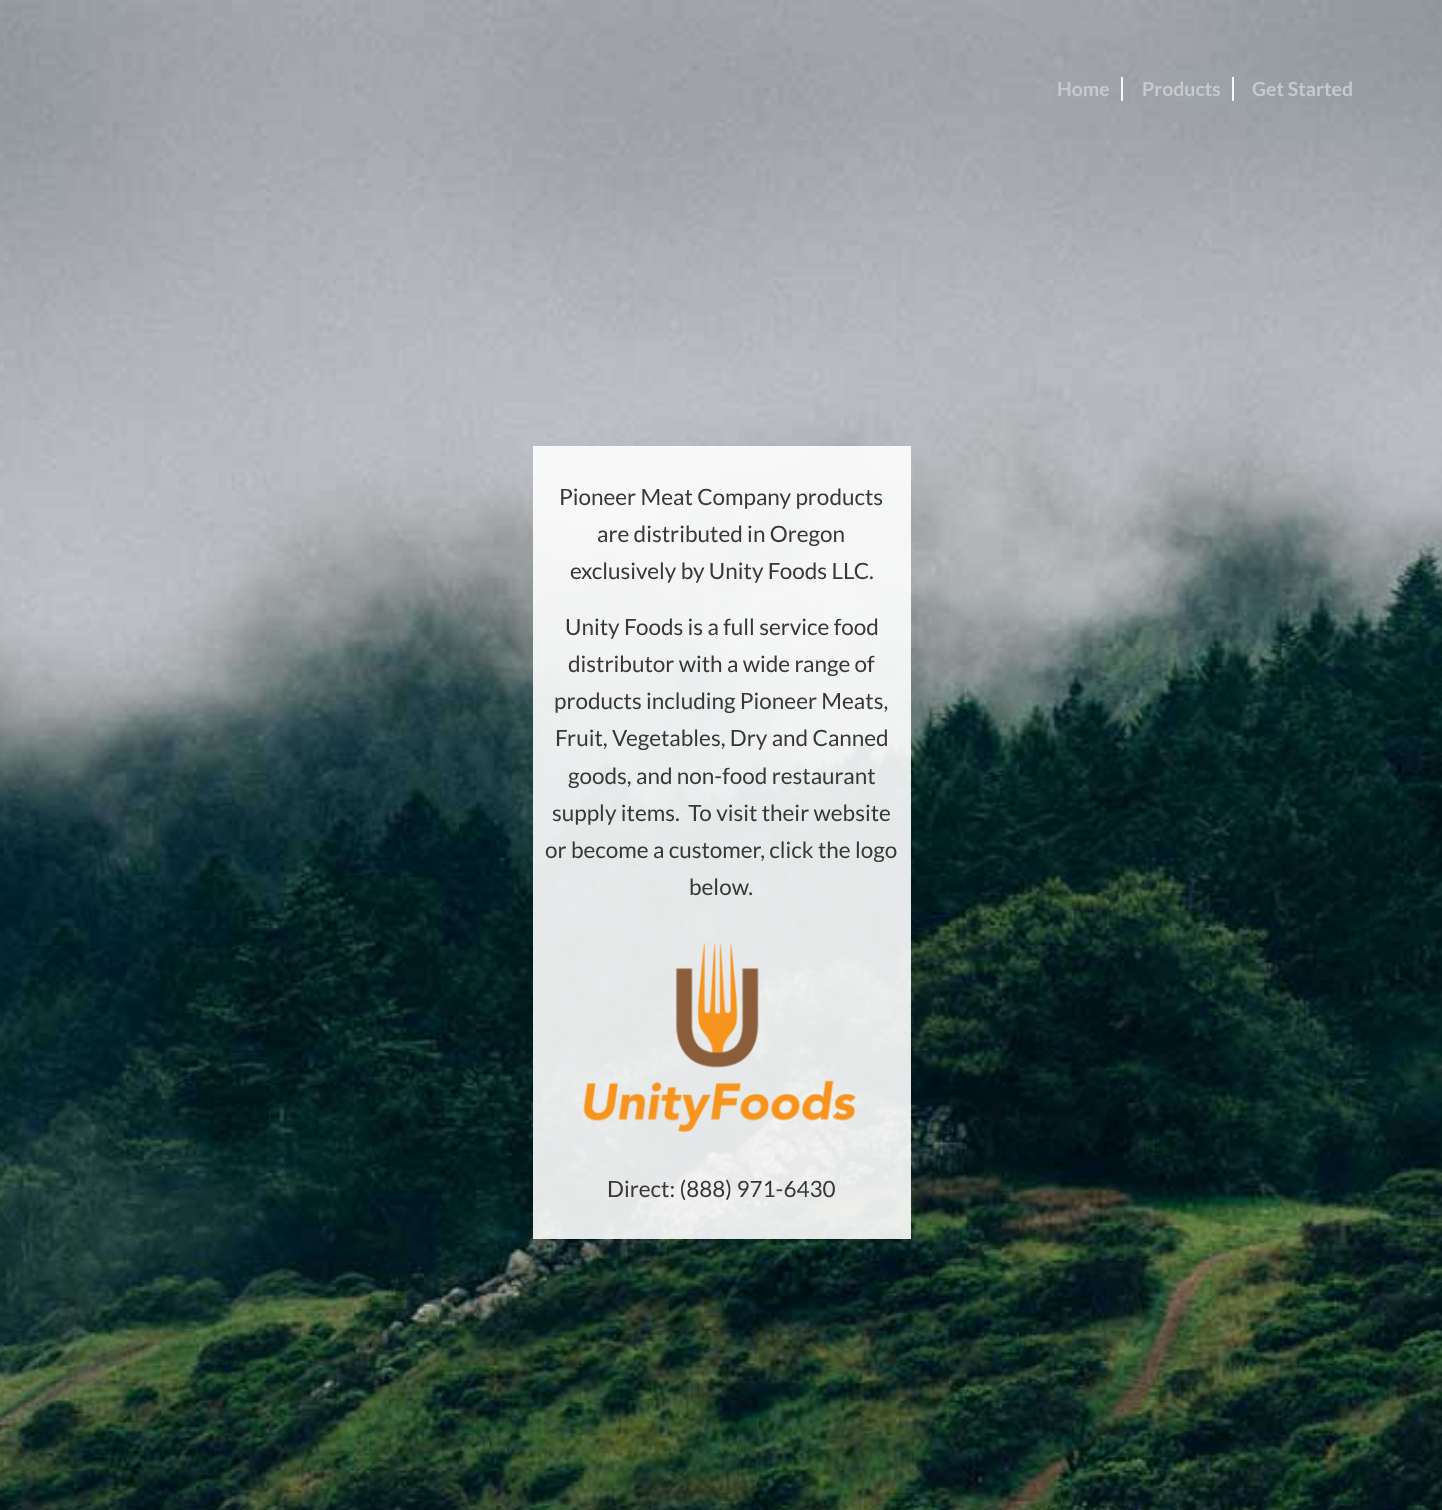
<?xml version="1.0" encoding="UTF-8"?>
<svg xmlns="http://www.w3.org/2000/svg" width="1442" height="1510">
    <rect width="100%" height="100%" fill="#FFFFFF"/>
    <image x="0" y="0" width="1442" height="1510" href="img_01.png"/>
    <text x="1057" y="96" font-family="Lato" font-size="19.5" font-weight="700" fill="#C9C9C9">Home</text>
    <text x="1142" y="96" font-family="Lato" font-size="19.5" font-weight="700" fill="#C9C9C9">Products</text>
    <rect x="1121" y="77" width="2" height="24" fill="#F8F8F8"/>
    <text x="1252" y="96" font-family="Lato" font-size="19.5" font-weight="700" fill="#C9C9C9">Get Started</text>
    <rect x="1232" y="77" width="2" height="24" fill="#F8F8F8"/>
    <rect x="533" y="446" width="378" height="793" fill="#FFFFFF" fill-opacity="0.9"/>
    <text x="559" y="505" font-family="Lato" font-size="22.5" fill="#383838">Pioneer Meat Company products</text>
    <text x="597" y="542" font-family="Lato" font-size="22.5" fill="#383838">are distributed in Oregon</text>
    <text x="570" y="579" font-family="Lato" font-size="22.5" fill="#383838">exclusively by Unity Foods LLC.</text>
    <text x="565" y="635" font-family="Lato" font-size="22.5" fill="#383838">Unity Foods is a full service food</text>
    <text x="568" y="672" font-family="Lato" font-size="22.5" fill="#383838">distributor with a wide range of</text>
    <text x="554" y="709" font-family="Lato" font-size="22.5" fill="#383838">products including Pioneer Meats,</text>
    <text x="555" y="746" font-family="Lato" font-size="22.5" fill="#383838">Fruit, Vegetables, Dry and Canned</text>
    <text x="568" y="784" font-family="Lato" font-size="22.5" fill="#383838">goods, and non-food restaurant</text>
    <text x="552" y="821" font-family="Lato" font-size="22.5" fill="#383838" xml:space="preserve">supply items.  To visit their website</text>
    <text x="545" y="858" font-family="Lato" font-size="22.5" fill="#383838">or become a customer, click the logo</text>
    <text x="689" y="895" font-family="Lato" font-size="22.5" fill="#383838">below.</text>
    <image x="583" y="942" width="273" height="190" href="img_02.png"/>
    <text x="607" y="1197" font-family="Lato" font-size="22.5" fill="#383838">Direct: (888) 971-6430</text>
</svg>
